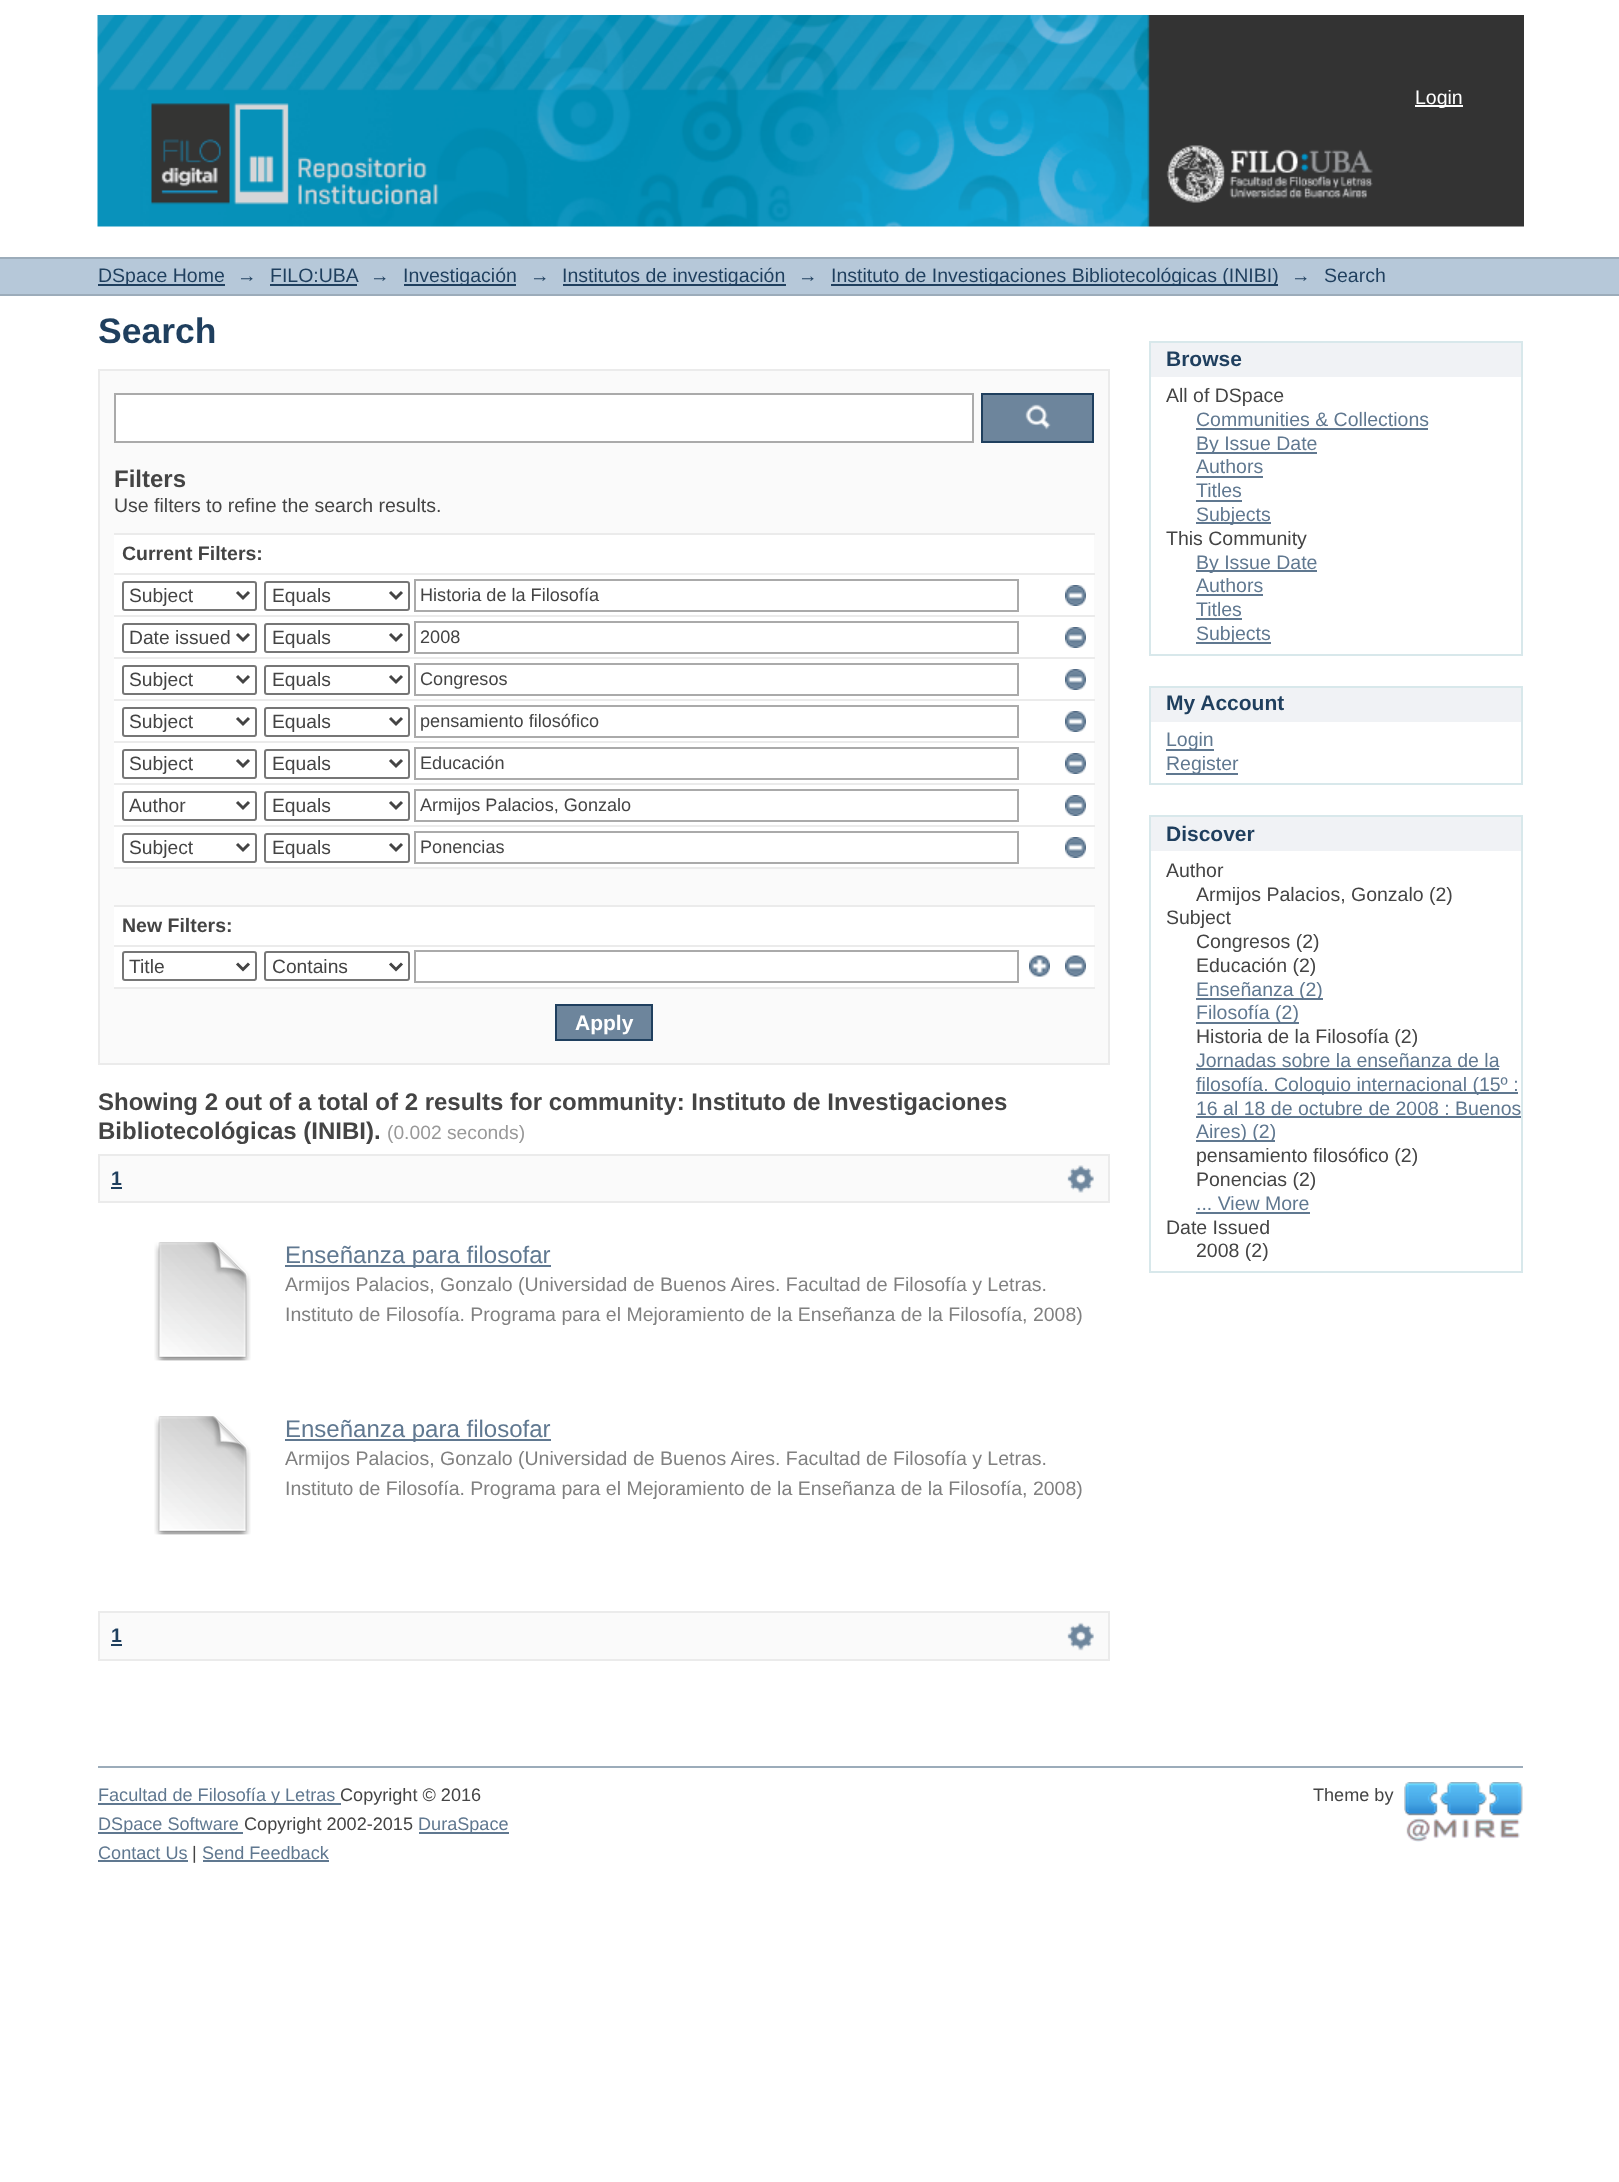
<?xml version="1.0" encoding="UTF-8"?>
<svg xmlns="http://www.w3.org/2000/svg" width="1619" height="2182">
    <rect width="100%" height="100%" fill="#FFFFFF"/>
    <image x="97" y="15" width="1427" height="212" href="img_01.png"/>
    <rect x="1415" y="105" width="48" height="2" fill="#FFFFFF"/>
    <text x="1415" y="104" font-family="Liberation Sans" font-size="19.5" fill="#FFFFFF">Login</text>
    <rect x="0" y="259" width="1619" height="35" fill="#B6C8D9"/>
    <rect x="0" y="257" width="1619" height="2" fill="#9CACBA"/>
    <rect x="0" y="294" width="1619" height="2" fill="#9CACBA"/>
    <rect x="98" y="284" width="127" height="2" fill="#1F3F5E"/>
    <text x="98" y="282" font-family="Liberation Sans" font-size="19.5" fill="#1F3F5E">DSpace Home</text>
    <text x="237" y="282" font-family="Liberation Sans" font-size="19.5" fill="#1F3F5E">→</text>
    <text x="270" y="282" font-family="Liberation Sans" font-size="19.5" fill="#1F3F5E">FILO:UBA</text>
    <rect x="270" y="284" width="87" height="2" fill="#1F3F5E"/>
    <text x="370" y="282" font-family="Liberation Sans" font-size="19.5" fill="#1F3F5E">→</text>
    <rect x="404" y="284" width="112" height="2" fill="#1F3F5E"/>
    <text x="403" y="282" font-family="Liberation Sans" font-size="19.5" fill="#1F3F5E">Investigación</text>
    <text x="530" y="282" font-family="Liberation Sans" font-size="19.5" fill="#1F3F5E">→</text>
    <rect x="563" y="284" width="223" height="2" fill="#1F3F5E"/>
    <text x="562" y="282" font-family="Liberation Sans" font-size="19.5" fill="#1F3F5E">Institutos de investigación</text>
    <text x="798" y="282" font-family="Liberation Sans" font-size="19.5" fill="#1F3F5E">→</text>
    <rect x="831" y="284" width="447" height="2" fill="#1F3F5E"/>
    <text x="831" y="282" font-family="Liberation Sans" font-size="19.5" fill="#1F3F5E">Instituto de Investigaciones Bibliotecológicas (INIBI)</text>
    <text x="1291" y="282" font-family="Liberation Sans" font-size="19.5" fill="#1F3F5E">→</text>
    <text x="1324" y="282" font-family="Liberation Sans" font-size="19.5" fill="#1F3F5E">Search</text>
    <text x="98" y="343" font-family="Liberation Sans" font-size="35.5" font-weight="700" fill="#1F3F5E">Search</text>
    <rect x="99" y="370" width="1010" height="694" fill="#FAFAFA" stroke="#EBEBEB" stroke-width="2"/>
    <rect x="115" y="394" width="858" height="48" fill="#FFFFFF" stroke="#AAAAAA" stroke-width="2"/>
    <rect x="983" y="395" width="109" height="46" fill="#6D859C"/>
    <image x="1025" y="404" width="26" height="26" href="img_02.png"/>
    <rect x="982" y="394" width="111" height="48" fill="none" stroke="#1F3F5E" stroke-width="2"/>
    <text x="114" y="487" font-family="Liberation Sans" font-size="24" font-weight="700" fill="#444444">Filters</text>
    <text x="114" y="512" font-family="Liberation Sans" font-size="19.5" fill="#444444">Use filters to refine the search results.</text>
    <rect x="114" y="535" width="980" height="452" fill="#FFFFFF"/>
    <rect x="114" y="533" width="981" height="2" fill="#EBEBEB"/>
    <text x="122" y="560" font-family="Liberation Sans" font-size="19.5" font-weight="700" fill="#444444">Current Filters:</text>
    <rect x="114" y="573" width="981" height="2" fill="#EBEBEB"/>
    <rect x="123" y="582" width="133" height="28" rx="2" fill="none" stroke="#767676" stroke-width="2"/>
    <path d="M 237 592 L 243 598 L 249 592" fill="none" stroke="#444444" stroke-width="3"/>
    <text x="129" y="602" font-family="Liberation Sans" font-size="19.25" fill="#444444">Subject</text>
    <rect x="265" y="582" width="144" height="28" rx="2" fill="none" stroke="#767676" stroke-width="2"/>
    <path d="M 390 592 L 396 598 L 402 592" fill="none" stroke="#444444" stroke-width="3"/>
    <text x="272" y="602" font-family="Liberation Sans" font-size="19.25" fill="#444444">Equals</text>
    <rect x="415" y="580" width="603" height="31" fill="none" stroke="#AAAAAA" stroke-width="2"/>
    <text x="420" y="601" font-family="Liberation Sans" font-size="18.1" fill="#444444">Historia de la Filosofía</text>
    <image x="1065" y="585" width="21" height="21" href="img_03.png"/>
    <rect x="114" y="615" width="981" height="2" fill="#EBEBEB"/>
    <rect x="123" y="624" width="133" height="28" rx="2" fill="none" stroke="#767676" stroke-width="2"/>
    <path d="M 237 634 L 243 640 L 249 634" fill="none" stroke="#444444" stroke-width="3"/>
    <text x="129" y="644" font-family="Liberation Sans" font-size="19.25" fill="#444444">Date issued</text>
    <rect x="265" y="624" width="144" height="28" rx="2" fill="none" stroke="#767676" stroke-width="2"/>
    <path d="M 390 634 L 396 640 L 402 634" fill="none" stroke="#444444" stroke-width="3"/>
    <text x="272" y="644" font-family="Liberation Sans" font-size="19.25" fill="#444444">Equals</text>
    <rect x="415" y="622" width="603" height="31" fill="none" stroke="#AAAAAA" stroke-width="2"/>
    <text x="420" y="643" font-family="Liberation Sans" font-size="18.1" fill="#444444">2008</text>
    <image x="1065" y="627" width="21" height="21" href="img_03.png"/>
    <rect x="114" y="657" width="981" height="2" fill="#EBEBEB"/>
    <rect x="123" y="666" width="133" height="28" rx="2" fill="none" stroke="#767676" stroke-width="2"/>
    <path d="M 237 676 L 243 682 L 249 676" fill="none" stroke="#444444" stroke-width="3"/>
    <text x="129" y="686" font-family="Liberation Sans" font-size="19.25" fill="#444444">Subject</text>
    <rect x="265" y="666" width="144" height="28" rx="2" fill="none" stroke="#767676" stroke-width="2"/>
    <path d="M 390 676 L 396 682 L 402 676" fill="none" stroke="#444444" stroke-width="3"/>
    <text x="272" y="686" font-family="Liberation Sans" font-size="19.25" fill="#444444">Equals</text>
    <rect x="415" y="664" width="603" height="31" fill="none" stroke="#AAAAAA" stroke-width="2"/>
    <text x="420" y="685" font-family="Liberation Sans" font-size="18.1" fill="#444444">Congresos</text>
    <image x="1065" y="669" width="21" height="21" href="img_03.png"/>
    <rect x="114" y="699" width="981" height="2" fill="#EBEBEB"/>
    <rect x="123" y="708" width="133" height="28" rx="2" fill="none" stroke="#767676" stroke-width="2"/>
    <path d="M 237 718 L 243 724 L 249 718" fill="none" stroke="#444444" stroke-width="3"/>
    <text x="129" y="728" font-family="Liberation Sans" font-size="19.25" fill="#444444">Subject</text>
    <rect x="265" y="708" width="144" height="28" rx="2" fill="none" stroke="#767676" stroke-width="2"/>
    <path d="M 390 718 L 396 724 L 402 718" fill="none" stroke="#444444" stroke-width="3"/>
    <text x="272" y="728" font-family="Liberation Sans" font-size="19.25" fill="#444444">Equals</text>
    <rect x="415" y="706" width="603" height="31" fill="none" stroke="#AAAAAA" stroke-width="2"/>
    <text x="420" y="727" font-family="Liberation Sans" font-size="18.1" fill="#444444">pensamiento filosófico</text>
    <image x="1065" y="711" width="21" height="21" href="img_03.png"/>
    <rect x="114" y="741" width="981" height="2" fill="#EBEBEB"/>
    <rect x="123" y="750" width="133" height="28" rx="2" fill="none" stroke="#767676" stroke-width="2"/>
    <path d="M 237 760 L 243 766 L 249 760" fill="none" stroke="#444444" stroke-width="3"/>
    <text x="129" y="770" font-family="Liberation Sans" font-size="19.25" fill="#444444">Subject</text>
    <rect x="265" y="750" width="144" height="28" rx="2" fill="none" stroke="#767676" stroke-width="2"/>
    <path d="M 390 760 L 396 766 L 402 760" fill="none" stroke="#444444" stroke-width="3"/>
    <text x="272" y="770" font-family="Liberation Sans" font-size="19.25" fill="#444444">Equals</text>
    <rect x="415" y="748" width="603" height="31" fill="none" stroke="#AAAAAA" stroke-width="2"/>
    <text x="420" y="769" font-family="Liberation Sans" font-size="18.1" fill="#444444">Educación</text>
    <image x="1065" y="753" width="21" height="21" href="img_03.png"/>
    <rect x="114" y="783" width="981" height="2" fill="#EBEBEB"/>
    <rect x="123" y="792" width="133" height="28" rx="2" fill="none" stroke="#767676" stroke-width="2"/>
    <path d="M 237 802 L 243 808 L 249 802" fill="none" stroke="#444444" stroke-width="3"/>
    <text x="129" y="812" font-family="Liberation Sans" font-size="19.25" fill="#444444">Author</text>
    <rect x="265" y="792" width="144" height="28" rx="2" fill="none" stroke="#767676" stroke-width="2"/>
    <path d="M 390 802 L 396 808 L 402 802" fill="none" stroke="#444444" stroke-width="3"/>
    <text x="272" y="812" font-family="Liberation Sans" font-size="19.25" fill="#444444">Equals</text>
    <rect x="415" y="790" width="603" height="31" fill="none" stroke="#AAAAAA" stroke-width="2"/>
    <text x="420" y="811" font-family="Liberation Sans" font-size="18.1" fill="#444444">Armijos Palacios, Gonzalo</text>
    <image x="1065" y="795" width="21" height="21" href="img_03.png"/>
    <rect x="114" y="825" width="981" height="2" fill="#EBEBEB"/>
    <rect x="123" y="834" width="133" height="28" rx="2" fill="none" stroke="#767676" stroke-width="2"/>
    <path d="M 237 844 L 243 850 L 249 844" fill="none" stroke="#444444" stroke-width="3"/>
    <text x="129" y="854" font-family="Liberation Sans" font-size="19.25" fill="#444444">Subject</text>
    <rect x="265" y="834" width="144" height="28" rx="2" fill="none" stroke="#767676" stroke-width="2"/>
    <path d="M 390 844 L 396 850 L 402 844" fill="none" stroke="#444444" stroke-width="3"/>
    <text x="272" y="854" font-family="Liberation Sans" font-size="19.25" fill="#444444">Equals</text>
    <rect x="415" y="832" width="603" height="31" fill="none" stroke="#AAAAAA" stroke-width="2"/>
    <text x="420" y="853" font-family="Liberation Sans" font-size="18.1" fill="#444444">Ponencias</text>
    <image x="1065" y="837" width="21" height="21" href="img_03.png"/>
    <rect x="114" y="869" width="980" height="36" fill="#FAFAFA"/>
    <rect x="114" y="867" width="981" height="2" fill="#EBEBEB"/>
    <rect x="114" y="905" width="981" height="2" fill="#EBEBEB"/>
    <text x="122" y="932" font-family="Liberation Sans" font-size="19.5" font-weight="700" fill="#444444">New Filters:</text>
    <rect x="114" y="945" width="981" height="2" fill="#EBEBEB"/>
    <rect x="123" y="952" width="133" height="28" rx="2" fill="none" stroke="#767676" stroke-width="2"/>
    <path d="M 237 963.5 L 243 969.5 L 249 963.5" fill="none" stroke="#444444" stroke-width="3"/>
    <text x="129" y="973" font-family="Liberation Sans" font-size="19.25" fill="#444444">Title</text>
    <rect x="265" y="952" width="144" height="28" rx="2" fill="none" stroke="#767676" stroke-width="2"/>
    <path d="M 390 963.5 L 396 969.5 L 402 963.5" fill="none" stroke="#444444" stroke-width="3"/>
    <text x="272" y="973" font-family="Liberation Sans" font-size="19.25" fill="#444444">Contains</text>
    <rect x="415" y="951" width="603" height="31" fill="none" stroke="#AAAAAA" stroke-width="2"/>
    <image x="1029" y="955" width="21" height="22" href="img_04.png"/>
    <image x="1065" y="955" width="21" height="22" href="img_05.png"/>
    <rect x="114" y="987" width="981" height="2" fill="#EBEBEB"/>
    <rect x="556" y="1005" width="96" height="35" fill="#6D859C" stroke="#1F3F5E" stroke-width="2"/>
    <text x="575" y="1030" font-family="Liberation Sans" font-size="21" font-weight="700" fill="#FFFFFF">Apply</text>
    <text font-family="Liberation Sans" font-size="24" font-weight="700" fill="#444444">
        <tspan x="98" y="1110">Showing 2 out of a total of 2 results for community: Instituto de Investigaciones</tspan>
        <tspan x="98" y="1139">Bibliotecológicas (INIBI).</tspan>
    </text>
    <text x="387" y="1139" font-family="Liberation Sans" font-size="19.25" fill="#999999">(0.002 seconds)</text>
    <rect x="99" y="1155" width="1010" height="47" fill="#FAFAFA" stroke="#EBEBEB" stroke-width="2"/>
    <text x="111" y="1185" font-family="Liberation Sans" font-size="19.5" font-weight="700" fill="#1F3F5E">1</text>
    <rect x="111" y="1187" width="11" height="2" fill="#1F3F5E"/>
    <image x="1067" y="1165" width="27" height="28" href="img_06.png"/>
    <image x="154" y="1242" width="97" height="119" href="img_07.png"/>
    <rect x="285" y="1265" width="266" height="2" fill="#607890"/>
    <text x="285" y="1263" font-family="Liberation Sans" font-size="24" fill="#607890">Enseñanza para filosofar</text>
    <text font-family="Liberation Sans" font-size="19.5" fill="#808080">
        <tspan x="285" y="1291">Armijos Palacios, Gonzalo (Universidad de Buenos Aires. Facultad de Filosofía y Letras.</tspan>
        <tspan x="285" y="1321">Instituto de Filosofía. Programa para el Mejoramiento de la Enseñanza de la Filosofía, 2008)</tspan>
    </text>
    <image x="154" y="1416" width="97" height="119" href="img_07.png"/>
    <rect x="285" y="1439" width="266" height="2" fill="#607890"/>
    <text x="285" y="1437" font-family="Liberation Sans" font-size="24" fill="#607890">Enseñanza para filosofar</text>
    <text font-family="Liberation Sans" font-size="19.5" fill="#808080">
        <tspan x="285" y="1465">Armijos Palacios, Gonzalo (Universidad de Buenos Aires. Facultad de Filosofía y Letras.</tspan>
        <tspan x="285" y="1495">Instituto de Filosofía. Programa para el Mejoramiento de la Enseñanza de la Filosofía, 2008)</tspan>
    </text>
    <rect x="99" y="1612" width="1010" height="48" fill="#FAFAFA" stroke="#EBEBEB" stroke-width="2"/>
    <text x="111" y="1642" font-family="Liberation Sans" font-size="19.5" font-weight="700" fill="#1F3F5E">1</text>
    <rect x="111" y="1644" width="11" height="2" fill="#1F3F5E"/>
    <image x="1067" y="1622" width="27" height="29" href="img_08.png"/>
    <rect x="1151" y="343" width="370" height="34" fill="#F0F2F5"/>
    <rect x="1149" y="341" width="374" height="2" fill="#D8E8EB"/>
    <rect x="1521" y="341" width="2" height="315" fill="#D8E8EB"/>
    <rect x="1149" y="341" width="2" height="36" fill="#D8E8EB"/>
    <text x="1166" y="366" font-family="Liberation Sans" font-size="21" font-weight="700" fill="#1F3F5E">Browse</text>
    <rect x="1149" y="654" width="374" height="2" fill="#D8E8EB"/>
    <rect x="1149" y="377" width="2" height="279" fill="#D8E8EB"/>
    <text x="1166" y="402" font-family="Liberation Sans" font-size="19.5" fill="#444444">All of DSpace</text>
    <text x="1196" y="426" font-family="Liberation Sans" font-size="19.5" fill="#607890">Communities &amp; Collections</text>
    <rect x="1196" y="428" width="232" height="2" fill="#607890"/>
    <rect x="1196" y="452" width="121" height="2" fill="#607890"/>
    <text font-family="Liberation Sans" font-size="19.5" fill="#607890">
        <tspan x="1196" y="450">By Issue Date</tspan>
        <tspan x="1196" y="473">Authors</tspan>
    </text>
    <rect x="1196" y="476" width="67" height="2" fill="#607890"/>
    <text x="1196" y="497" font-family="Liberation Sans" font-size="19.5" fill="#607890">Titles</text>
    <rect x="1196" y="500" width="46" height="2" fill="#607890"/>
    <rect x="1196" y="522" width="75" height="2" fill="#607890"/>
    <text x="1196" y="521" font-family="Liberation Sans" font-size="19.5" fill="#607890">Subjects</text>
    <text x="1166" y="545" font-family="Liberation Sans" font-size="19.5" fill="#444444">This Community</text>
    <rect x="1196" y="570" width="121" height="2" fill="#607890"/>
    <text font-family="Liberation Sans" font-size="19.5" fill="#607890">
        <tspan x="1196" y="569">By Issue Date</tspan>
        <tspan x="1196" y="592">Authors</tspan>
    </text>
    <rect x="1196" y="594" width="67" height="2" fill="#607890"/>
    <text x="1196" y="616" font-family="Liberation Sans" font-size="19.5" fill="#607890">Titles</text>
    <rect x="1196" y="618" width="46" height="2" fill="#607890"/>
    <rect x="1196" y="642" width="75" height="2" fill="#607890"/>
    <text x="1196" y="640" font-family="Liberation Sans" font-size="19.5" fill="#607890">Subjects</text>
    <rect x="1151" y="688" width="370" height="34" fill="#F0F2F5"/>
    <rect x="1149" y="686" width="374" height="2" fill="#D8E8EB"/>
    <rect x="1521" y="686" width="2" height="99" fill="#D8E8EB"/>
    <rect x="1149" y="686" width="2" height="36" fill="#D8E8EB"/>
    <text x="1166" y="710" font-family="Liberation Sans" font-size="21" font-weight="700" fill="#1F3F5E">My Account</text>
    <rect x="1149" y="783" width="374" height="2" fill="#D8E8EB"/>
    <rect x="1149" y="722" width="2" height="63" fill="#D8E8EB"/>
    <rect x="1166" y="749" width="48" height="2" fill="#607890"/>
    <text x="1166" y="746" font-family="Liberation Sans" font-size="19.5" fill="#607890">Login</text>
    <rect x="1166" y="773" width="72" height="2" fill="#607890"/>
    <text x="1166" y="770" font-family="Liberation Sans" font-size="19.5" fill="#607890">Register</text>
    <rect x="1151" y="817" width="370" height="34" fill="#F0F2F5"/>
    <rect x="1149" y="815" width="374" height="2" fill="#D8E8EB"/>
    <rect x="1521" y="815" width="2" height="457" fill="#D8E8EB"/>
    <rect x="1149" y="815" width="2" height="36" fill="#D8E8EB"/>
    <text x="1166" y="841" font-family="Liberation Sans" font-size="21" font-weight="700" fill="#1F3F5E">Discover</text>
    <rect x="1149" y="1271" width="374" height="2" fill="#D8E8EB"/>
    <rect x="1149" y="851" width="2" height="421" fill="#D8E8EB"/>
    <text x="1166" y="877" font-family="Liberation Sans" font-size="19.5" fill="#444444">Author</text>
    <text x="1196" y="901" font-family="Liberation Sans" font-size="19.5" fill="#444444">Armijos Palacios, Gonzalo (2)</text>
    <text x="1166" y="924" font-family="Liberation Sans" font-size="19.5" fill="#444444">Subject</text>
    <text font-family="Liberation Sans" font-size="19.5" fill="#444444">
        <tspan x="1196" y="948">Congresos (2)</tspan>
        <tspan x="1196" y="972">Educación (2)</tspan>
    </text>
    <rect x="1196" y="998" width="127" height="2" fill="#607890"/>
    <text x="1196" y="996" font-family="Liberation Sans" font-size="19.5" fill="#607890">Enseñanza (2)</text>
    <rect x="1196" y="1022" width="103" height="2" fill="#607890"/>
    <text x="1196" y="1019" font-family="Liberation Sans" font-size="19.5" fill="#607890">Filosofía (2)</text>
    <text x="1196" y="1043" font-family="Liberation Sans" font-size="19.5" fill="#444444">Historia de la Filosofía (2)</text>
    <text x="1196" y="1067" font-family="Liberation Sans" font-size="19.5" fill="#607890">Jornadas sobre la enseñanza de la</text>
    <rect x="1196" y="1068" width="303" height="2" fill="#607890"/>
    <rect x="1196" y="1092" width="322" height="2" fill="#607890"/>
    <text font-family="Liberation Sans" font-size="19.5" fill="#607890">
        <tspan x="1196" y="1091">filosofía. Coloquio internacional (15º :</tspan>
        <tspan x="1196" y="1115">16 al 18 de octubre de 2008 : Buenos</tspan>
    </text>
    <rect x="1196" y="1116" width="325" height="2" fill="#607890"/>
    <rect x="1196" y="1140" width="79" height="2" fill="#607890"/>
    <text x="1196" y="1138" font-family="Liberation Sans" font-size="19.5" fill="#607890">Aires) (2)</text>
    <text font-family="Liberation Sans" font-size="19.5" fill="#444444">
        <tspan x="1196" y="1162">pensamiento filosófico (2)</tspan>
        <tspan x="1196" y="1186">Ponencias (2)</tspan>
    </text>
    <text x="1196" y="1210" font-family="Liberation Sans" font-size="19.5" fill="#607890">... View More</text>
    <rect x="1196" y="1212" width="114" height="2" fill="#607890"/>
    <text x="1166" y="1234" font-family="Liberation Sans" font-size="19.5" fill="#444444">Date Issued</text>
    <text x="1196" y="1257" font-family="Liberation Sans" font-size="19.5" fill="#444444">2008 (2)</text>
    <rect x="98" y="1766" width="1425" height="2" fill="#9CACBA"/>
    <rect x="98" y="1803" width="243" height="2" fill="#607890"/>
    <text x="98" y="1801" font-family="Liberation Sans" font-size="18.1" fill="#607890">Facultad de Filosofía y Letras</text>
    <text x="340" y="1801" font-family="Liberation Sans" font-size="18.1" fill="#444444">Copyright © 2016</text>
    <rect x="98" y="1832" width="145" height="2" fill="#607890"/>
    <text x="98" y="1830" font-family="Liberation Sans" font-size="18.1" fill="#607890">DSpace Software</text>
    <text x="244" y="1830" font-family="Liberation Sans" font-size="18.1" fill="#444444">Copyright 2002-2015</text>
    <rect x="419" y="1832" width="90" height="2" fill="#607890"/>
    <text x="418" y="1830" font-family="Liberation Sans" font-size="18.1" fill="#607890">DuraSpace</text>
    <text x="1313" y="1801" font-family="Liberation Sans" font-size="18.1" fill="#444444">Theme by</text>
    <image x="1404" y="1782" width="119" height="60" href="img_09.png"/>
    <text x="98" y="1859" font-family="Liberation Sans" font-size="18.1" fill="#607890">Contact Us</text>
    <rect x="98" y="1860" width="90" height="2" fill="#607890"/>
    <text x="192" y="1859" font-family="Liberation Sans" font-size="18.1" fill="#444444">|</text>
    <text x="202" y="1859" font-family="Liberation Sans" font-size="18.1" fill="#607890">Send Feedback</text>
    <rect x="203" y="1860" width="126" height="2" fill="#607890"/>
</svg>
